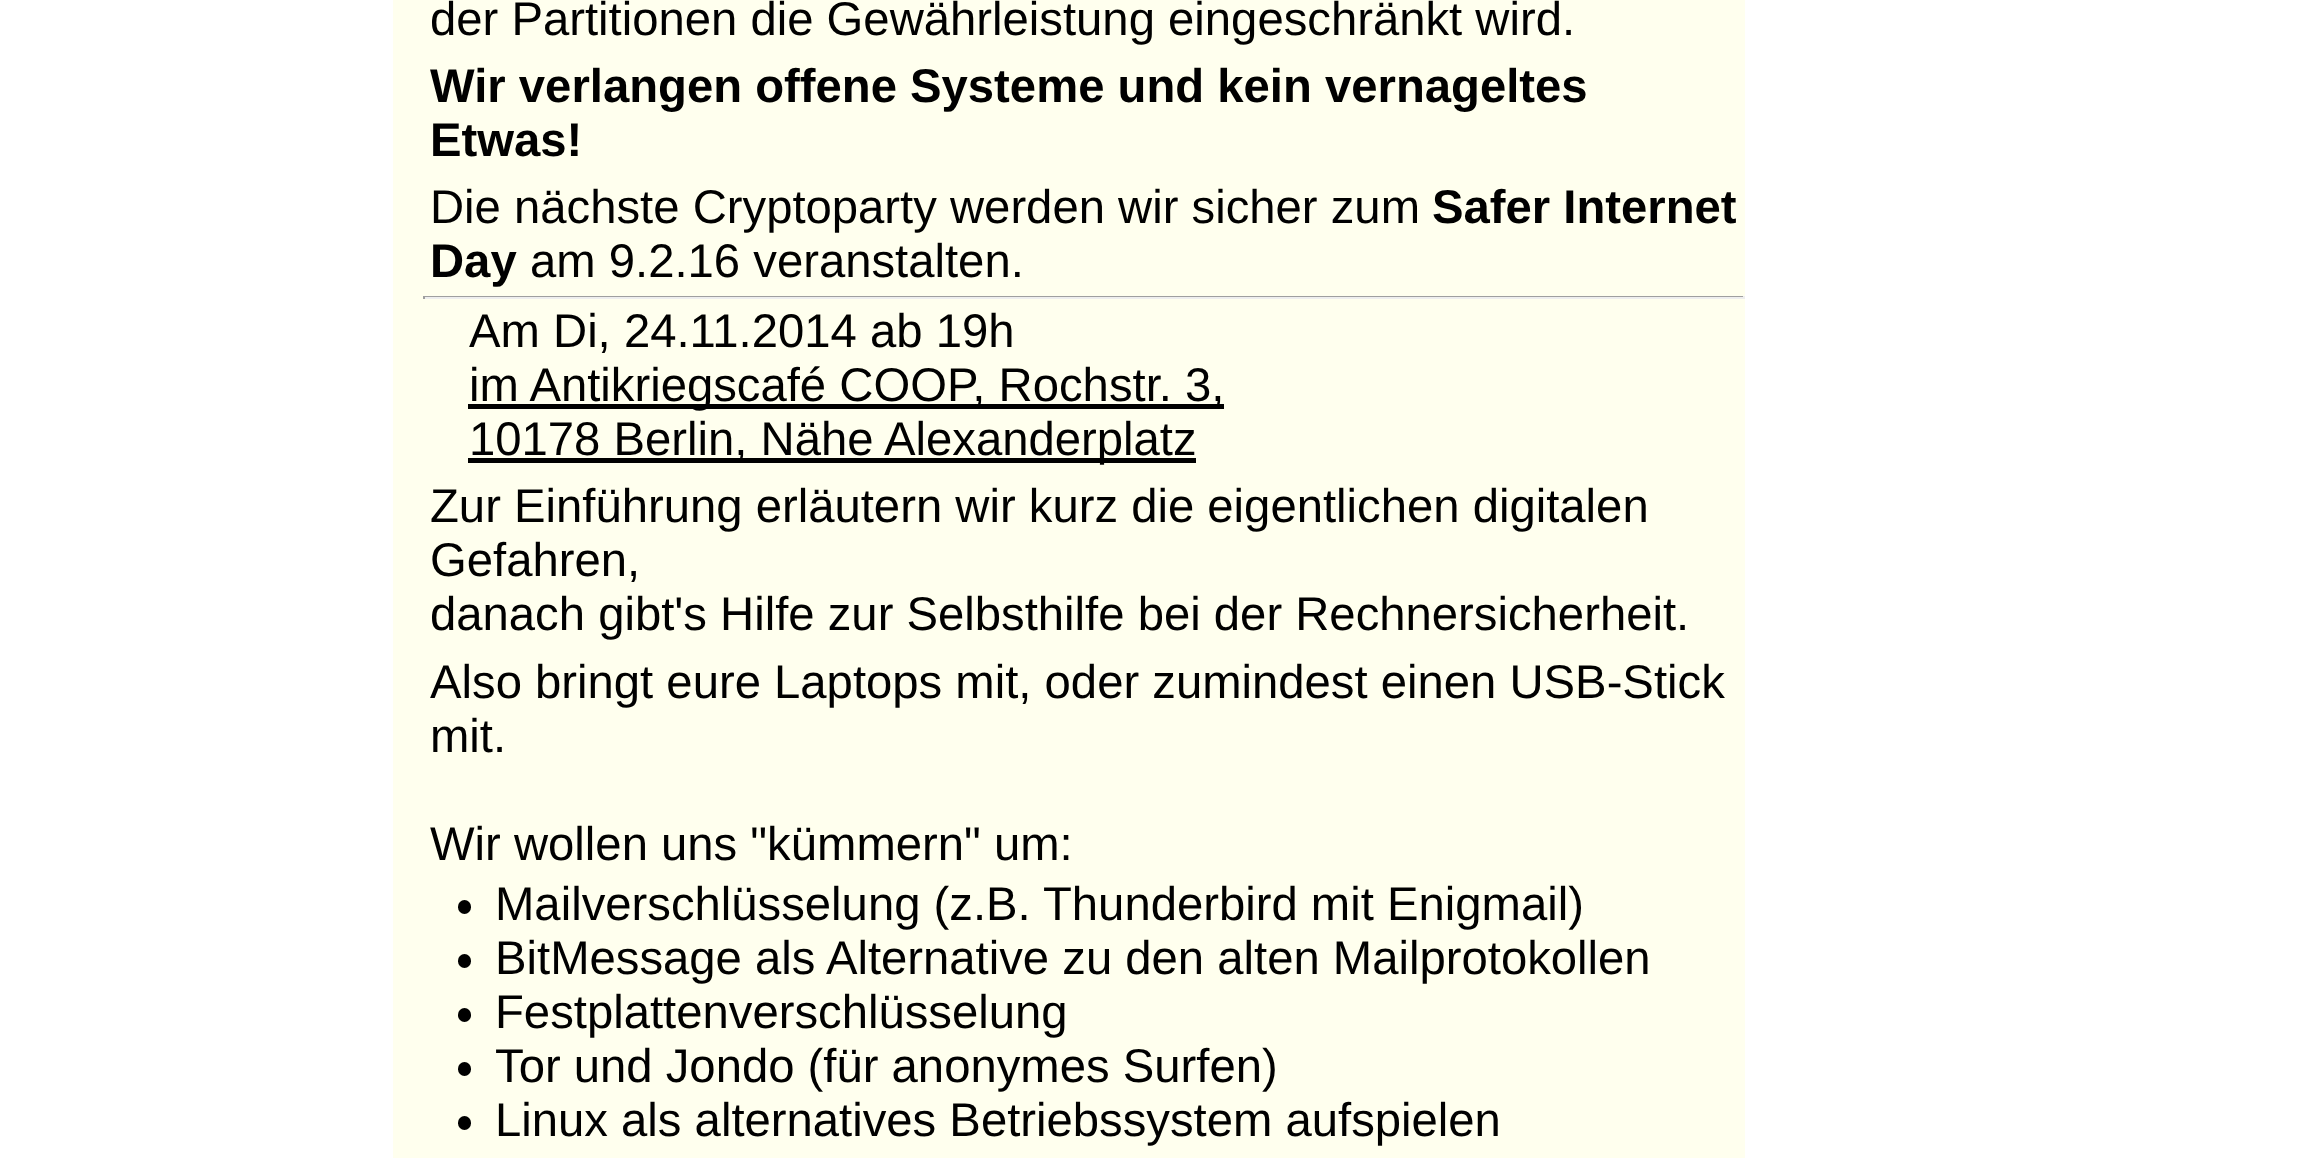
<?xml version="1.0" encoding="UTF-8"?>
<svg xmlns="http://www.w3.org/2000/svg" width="2321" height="1158">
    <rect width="100%" height="100%" fill="#FFFFFF"/>
    <rect x="393" y="0" width="1352" height="1158" fill="#FFFFEE"/>
    <text x="430" y="35" font-family="Liberation Sans" font-size="47.25" fill="#000000">der Partitionen die Gewährleistung eingeschränkt wird.</text>
    <text font-family="Liberation Sans" font-size="47.25" font-weight="700" fill="#000000">
        <tspan x="430" y="102">Wir verlangen offene Systeme und kein vernageltes</tspan>
        <tspan x="430" y="156">Etwas!</tspan>
    </text>
    <text x="430" y="223" font-family="Liberation Sans" font-size="47.25" fill="#000000">Die nächste Cryptoparty werden wir sicher zum</text>
    <text x="1432" y="223" font-family="Liberation Sans" font-size="47.25" font-weight="700" fill="#000000">Safer Internet</text>
    <text x="430" y="277" font-family="Liberation Sans" font-size="47.25" font-weight="700" fill="#000000">Day</text>
    <text x="530" y="277" font-family="Liberation Sans" font-size="47.25" fill="#000000">am 9.2.16 veranstalten.</text>
    <rect x="423" y="296" width="1322" height="1" fill="#9F9F9F"/>
    <rect x="1743" y="296" width="2" height="3" fill="#EEEEEE"/>
    <rect x="423" y="297" width="1322" height="2" fill="#EEEEEE"/>
    <rect x="423" y="296" width="2" height="3" fill="#9F9F9F"/>
    <text x="469" y="347" font-family="Liberation Sans" font-size="47.25" fill="#000000">Am Di, 24.11.2014 ab 19h</text>
    <rect x="468" y="404" width="756" height="5" fill="#000000"/>
    <text x="469" y="401" font-family="Liberation Sans" font-size="47.25" fill="#000000">im Antikriegscafé COOP, Rochstr. 3,</text>
    <rect x="468" y="458" width="728" height="5" fill="#000000"/>
    <text x="469" y="455" font-family="Liberation Sans" font-size="47.25" fill="#000000">10178 Berlin, Nähe Alexanderplatz</text>
    <text font-family="Liberation Sans" font-size="47.25" fill="#000000">
        <tspan x="430" y="522">Zur Einführung erläutern wir kurz die eigentlichen digitalen</tspan>
        <tspan x="430" y="576">Gefahren,</tspan>
        <tspan x="430" y="630">danach gibt's Hilfe zur Selbsthilfe bei der Rechnersicherheit.</tspan>
        <tspan x="430" y="698">Also bringt eure Laptops mit, oder zumindest einen USB-Stick</tspan>
        <tspan x="430" y="752">mit.</tspan>
    </text>
    <text x="430" y="860" font-family="Liberation Sans" font-size="47.25" fill="#000000">Wir wollen uns "kümmern" um:</text>
    <rect x="458" y="900" width="13" height="14" rx="6.5" fill="#000000"/>
    <text x="495" y="920" font-family="Liberation Sans" font-size="47.25" fill="#000000">Mailverschlüsselung (z.B. Thunderbird mit Enigmail)</text>
    <rect x="458" y="954" width="13" height="14" rx="6.5" fill="#000000"/>
    <text x="495" y="974" font-family="Liberation Sans" font-size="47.25" fill="#000000">BitMessage als Alternative zu den alten Mailprotokollen</text>
    <rect x="458" y="1008" width="13" height="14" rx="6.5" fill="#000000"/>
    <text x="495" y="1028" font-family="Liberation Sans" font-size="47.25" fill="#000000">Festplattenverschlüsselung</text>
    <rect x="458" y="1062" width="13" height="14" rx="6.5" fill="#000000"/>
    <text x="495" y="1082" font-family="Liberation Sans" font-size="47.25" fill="#000000">Tor und Jondo (für anonymes Surfen)</text>
    <rect x="458" y="1116" width="13" height="14" rx="6.5" fill="#000000"/>
    <text x="495" y="1136" font-family="Liberation Sans" font-size="47.25" fill="#000000">Linux als alternatives Betriebssystem aufspielen</text>
</svg>
